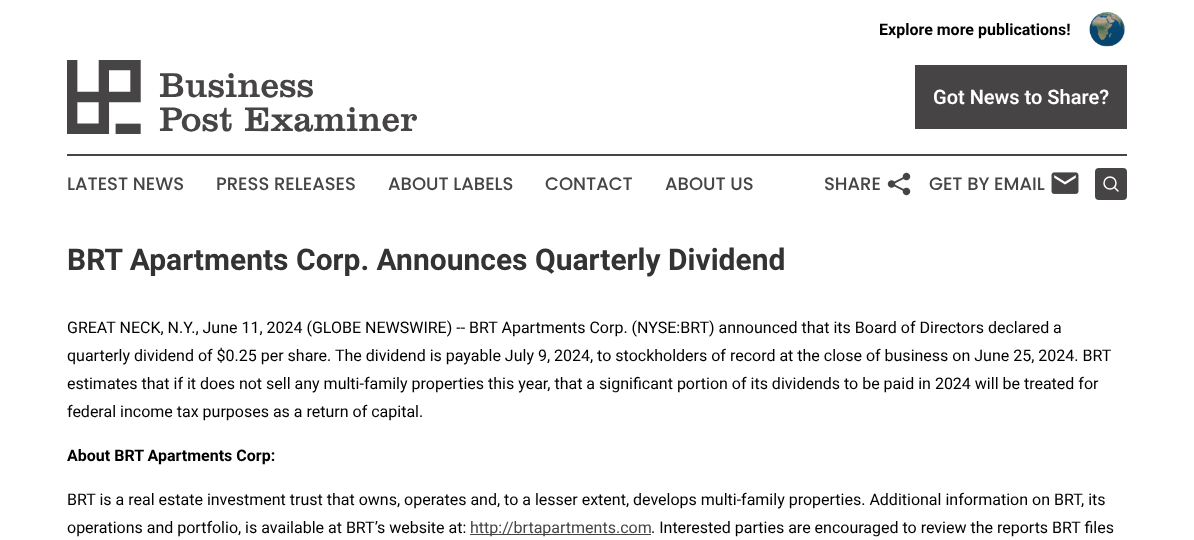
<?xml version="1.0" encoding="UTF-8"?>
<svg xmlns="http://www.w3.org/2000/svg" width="1194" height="540">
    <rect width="100%" height="100%" fill="#FFFFFF"/>
    <text x="879" y="35" font-family="Roboto" font-size="16" font-weight="700" fill="#000000">Explore more publications!</text>
    <image x="1089" y="12" width="36" height="35" href="img_01.png"/>
    <image x="67" y="60" width="350" height="74" href="img_02.png"/>
    <rect x="915" y="65" width="212" height="64" fill="#464445"/>
    <text x="933" y="104" font-family="Roboto" font-size="20" font-weight="600" fill="#FFFFFF">Got News to Share?</text>
    <rect x="67" y="154" width="1060" height="2" fill="#464445"/>
    <text x="67" y="190" font-family="Poppins" font-size="18" font-weight="500" fill="#464445">LATEST NEWS</text>
    <text x="216" y="190" font-family="Poppins" font-size="18" font-weight="500" fill="#464445">PRESS RELEASES</text>
    <text x="388" y="190" font-family="Poppins" font-size="18" font-weight="500" fill="#464445">ABOUT LABELS</text>
    <text x="545" y="190" font-family="Poppins" font-size="18" font-weight="500" fill="#464445">CONTACT</text>
    <text x="665" y="190" font-family="Poppins" font-size="18" font-weight="500" fill="#464445">ABOUT US</text>
    <text x="824" y="190" font-family="Poppins" font-size="18" font-weight="500" fill="#464445">SHARE</text>
    <image x="887" y="172" width="24" height="24" href="img_03.png"/>
    <text x="929" y="190" font-family="Poppins" font-size="18" font-weight="500" fill="#464445">GET BY EMAIL</text>
    <image x="1051" y="172" width="28" height="22" href="img_04.png"/>
    <rect x="1095" y="168" width="32" height="32" rx="4" fill="#464445"/>
    <circle cx="1110" cy="183" r="6" fill="none" stroke="#FFFFFF" stroke-width="1.5"/>
    <path d="M 1118 191 L 1114.5 187.5" fill="none" stroke="#FFFFFF" stroke-width="1.5" stroke-linecap="round" stroke-linejoin="round"/>
    <text x="67" y="270" font-family="Roboto" font-size="30" font-weight="700" fill="#333333">BRT Apartments Corp. Announces Quarterly Dividend</text>
    <text font-family="Roboto" font-size="16" fill="#000000">
        <tspan x="67" y="333">GREAT NECK, N.Y., June 11, 2024 (GLOBE NEWSWIRE) -- BRT Apartments Corp. (NYSE:BRT) announced that its Board of Directors declared a</tspan>
        <tspan x="67" y="361">quarterly dividend of $0.25 per share. The dividend is payable July 9, 2024, to stockholders of record at the close of business on June 25, 2024. BRT</tspan>
        <tspan x="67" y="389">estimates that if it does not sell any multi-family properties this year, that a significant portion of its dividends to be paid in 2024 will be treated for</tspan>
        <tspan x="67" y="417">federal income tax purposes as a return of capital.</tspan>
    </text>
    <text x="67" y="461" font-family="Roboto" font-size="16" font-weight="700" fill="#000000">About BRT Apartments Corp:</text>
    <text font-family="Roboto" font-size="16" fill="#000000">
        <tspan x="67" y="505">BRT is a real estate investment trust that owns, operates and, to a lesser extent, develops multi-family properties. Additional information on BRT, its</tspan>
        <tspan x="67" y="533">operations and portfolio, is available at BRT’s website at:</tspan>
    </text>
    <rect x="470" y="534" width="181" height="1" fill="#464445"/>
    <text x="470" y="533" font-family="Roboto" font-size="16" fill="#464445">http://brtapartments.com</text>
    <text x="651" y="533" font-family="Roboto" font-size="16" fill="#000000">. Interested parties are encouraged to review the reports BRT files</text>
</svg>
